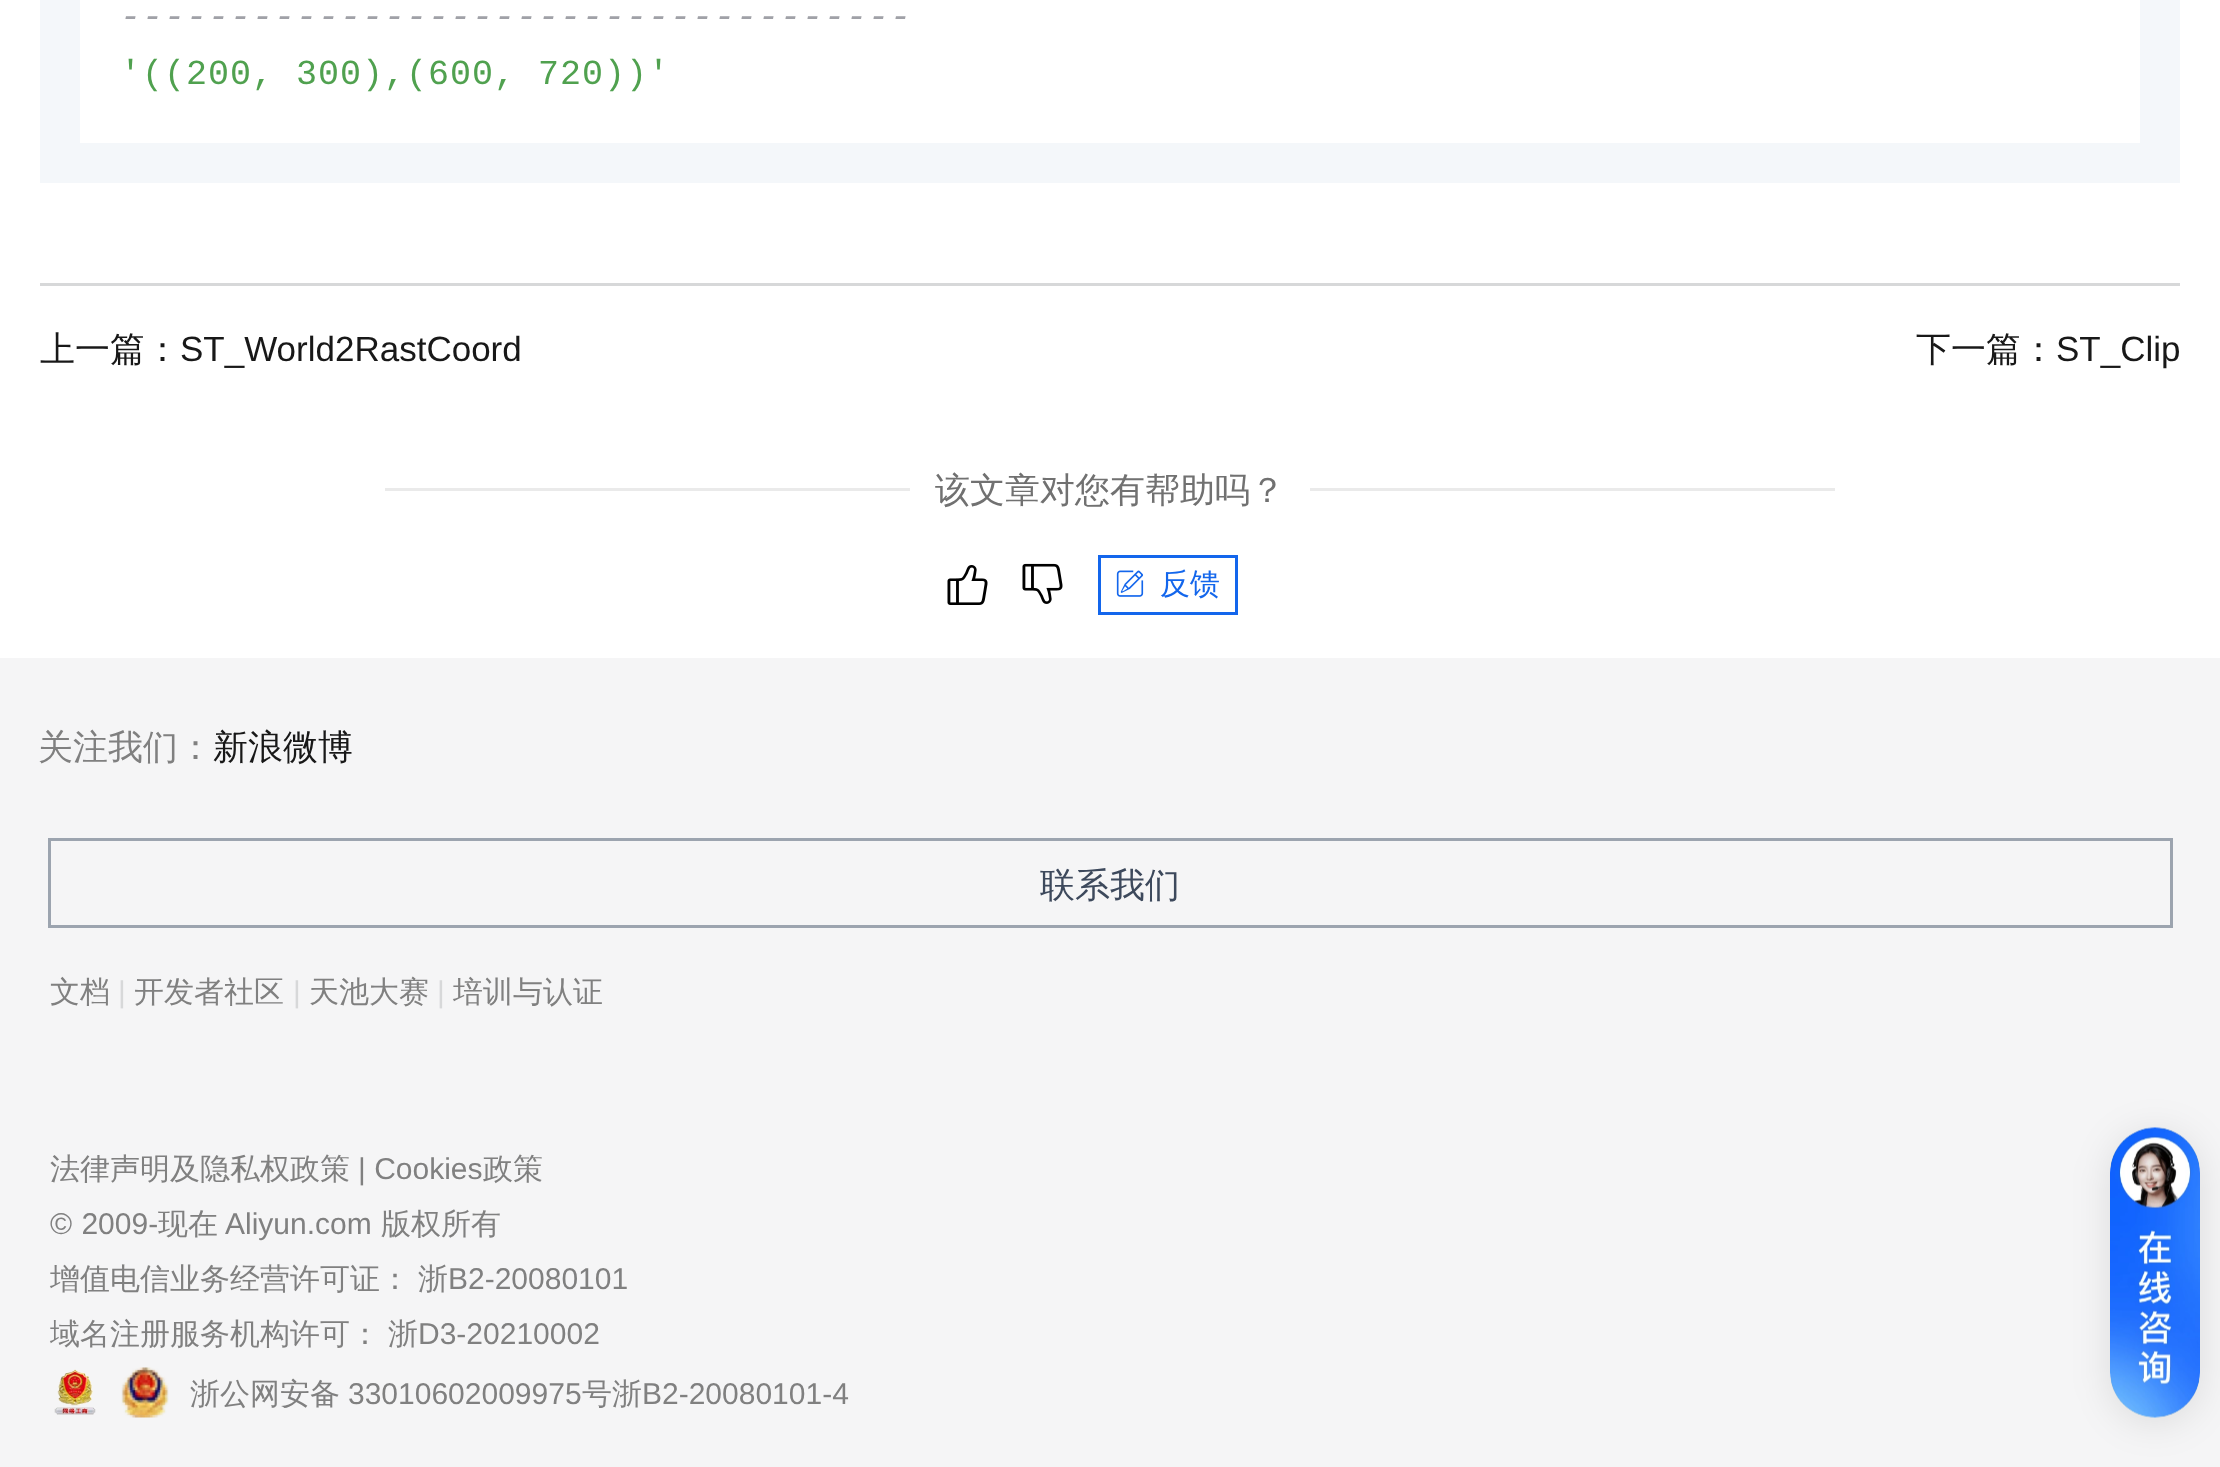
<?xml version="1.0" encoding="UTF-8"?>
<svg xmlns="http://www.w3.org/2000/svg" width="2220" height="1467">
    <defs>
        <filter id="blur1" x="-50%" y="-200%" width="200%" height="500%"><feGaussianBlur stdDeviation="19"/></filter>
    </defs>
    <rect width="100%" height="100%" fill="#FFFFFF"/>
    <rect x="40" y="0" width="2140" height="183" fill="#F4F7FA"/>
    <rect x="80" y="0" width="2060" height="143" fill="#FFFFFF"/>
    <text x="120" y="27" font-family="Liberation Mono" font-size="35" font-style="italic" letter-spacing="1" fill="#A0A1A7">------------------------------------</text>
    <text x="120" y="84" font-family="Liberation Mono" font-size="35" letter-spacing="1" fill="#50A14F">'((200, 300),(600, 720))'</text>
    <rect x="40" y="283" width="2140" height="3" fill="#D7D8D9"/>
    <text x="40" y="361" font-family="WenQuanYi Zen Hei" font-size="35" font-weight="500" fill="#181818">上一篇：</text>
    <text x="180" y="361" font-family="Liberation Sans" font-size="35" fill="#181818">ST_World2RastCoord</text>
    <text x="1916" y="361" font-family="WenQuanYi Zen Hei" font-size="35" font-weight="500" fill="#181818">下一篇：</text>
    <text x="2056" y="361" font-family="Liberation Sans" font-size="35" fill="#181818">ST_Clip</text>
    <rect x="385" y="488" width="525" height="3" fill="#EAEAEA"/>
    <text x="935" y="502" font-family="WenQuanYi Zen Hei" font-size="35" font-weight="500" fill="#717171">该文章对您有帮助吗？</text>
    <rect x="1310" y="488" width="525" height="3" fill="#EAEAEA"/>
    <image x="947" y="565" width="41" height="40" href="img_01.png"/>
    <image x="1022" y="563" width="41" height="41" href="img_02.png"/>
    <rect x="1099.5" y="556.5" width="137" height="57" fill="none" stroke="#1366EC" stroke-width="3"/>
    <image x="1116" y="570" width="28" height="27" href="img_03.png"/>
    <text x="1160" y="594" font-family="WenQuanYi Zen Hei" font-size="30" font-weight="500" fill="#1366EC">反馈</text>
    <rect x="0" y="658" width="2220" height="809" fill="#F5F5F6"/>
    <text x="38" y="759" font-family="WenQuanYi Zen Hei" font-size="35" font-weight="500" fill="#808080">关注我们：</text>
    <text x="213" y="759" font-family="WenQuanYi Zen Hei" font-size="35" font-weight="500" fill="#181818">新浪微博</text>
    <rect x="49.5" y="839.5" width="2122" height="87" fill="none" stroke="#9CA4AF" stroke-width="3"/>
    <text x="1040" y="897" font-family="WenQuanYi Zen Hei" font-size="35" font-weight="500" fill="#3D495C">联系我们</text>
    <text x="50" y="1002" font-family="WenQuanYi Zen Hei" font-size="30" font-weight="500" fill="#808080">文档</text>
    <text x="118" y="1002" font-family="Liberation Sans" font-size="30" fill="#D7D8D9">|</text>
    <text x="134" y="1002" font-family="WenQuanYi Zen Hei" font-size="30" font-weight="500" fill="#808080">开发者社区</text>
    <text x="293" y="1002" font-family="Liberation Sans" font-size="30" fill="#D7D8D9">|</text>
    <text x="309" y="1002" font-family="WenQuanYi Zen Hei" font-size="30" font-weight="500" fill="#808080">天池大赛</text>
    <text x="437" y="1002" font-family="Liberation Sans" font-size="30" fill="#D7D8D9">|</text>
    <text x="453" y="1002" font-family="WenQuanYi Zen Hei" font-size="30" font-weight="500" fill="#808080">培训与认证</text>
    <text x="50" y="1179" font-family="WenQuanYi Zen Hei" font-size="30" font-weight="500" fill="#808080">法律声明及隐私权政策</text>
    <text x="358" y="1179" font-family="Liberation Sans" font-size="30" fill="#808080">| Cookies</text>
    <text x="483" y="1179" font-family="WenQuanYi Zen Hei" font-size="30" font-weight="500" fill="#808080">政策</text>
    <text x="50" y="1234" word-spacing="1" font-family="Liberation Sans" font-size="30" fill="#808080">© 2009-</text>
    <text x="158" y="1234" font-family="WenQuanYi Zen Hei" font-size="30" font-weight="500" fill="#808080">现在</text>
    <text x="225" y="1234" font-family="Liberation Sans" font-size="30" fill="#808080">Aliyun.com</text>
    <text x="381" y="1234" font-family="WenQuanYi Zen Hei" font-size="30" font-weight="500" fill="#808080">版权所有</text>
    <text x="50" y="1289" font-family="WenQuanYi Zen Hei" font-size="30" font-weight="500" fill="#808080">增值电信业务经营许可证：</text>
    <text x="418" y="1289" font-family="WenQuanYi Zen Hei" font-size="30" font-weight="500" fill="#808080">浙</text>
    <text x="448" y="1289" font-family="Liberation Sans" font-size="30" fill="#808080">B2-20080101</text>
    <text x="50" y="1344" font-family="WenQuanYi Zen Hei" font-size="30" font-weight="500" fill="#808080">域名注册服务机构许可：</text>
    <text x="388" y="1344" font-family="WenQuanYi Zen Hei" font-size="30" font-weight="500" fill="#808080">浙</text>
    <text x="418" y="1344" font-family="Liberation Sans" font-size="30" fill="#808080">D3-20210002</text>
    <image x="54" y="1369" width="42" height="46" href="img_04.png"/>
    <image x="121" y="1367" width="48" height="51" href="img_05.png"/>
    <text x="190" y="1404" font-family="WenQuanYi Zen Hei" font-size="30" font-weight="500" fill="#808080">浙公网安备</text>
    <text x="348" y="1404" font-family="Liberation Sans" font-size="30" fill="#808080">33010602009975</text>
    <text x="582" y="1404" font-family="WenQuanYi Zen Hei" font-size="30" font-weight="500" fill="#808080">号浙</text>
    <text x="642" y="1404" font-family="Liberation Sans" font-size="30" fill="#808080">B2-20080101-4</text>
    <rect x="2110" y="1133" width="90" height="290" rx="45" fill="#000000" fill-opacity="0.1" filter="url(#blur1)"/>
    <image x="2110" y="1127" width="90" height="291" href="img_06.png"/>
</svg>
